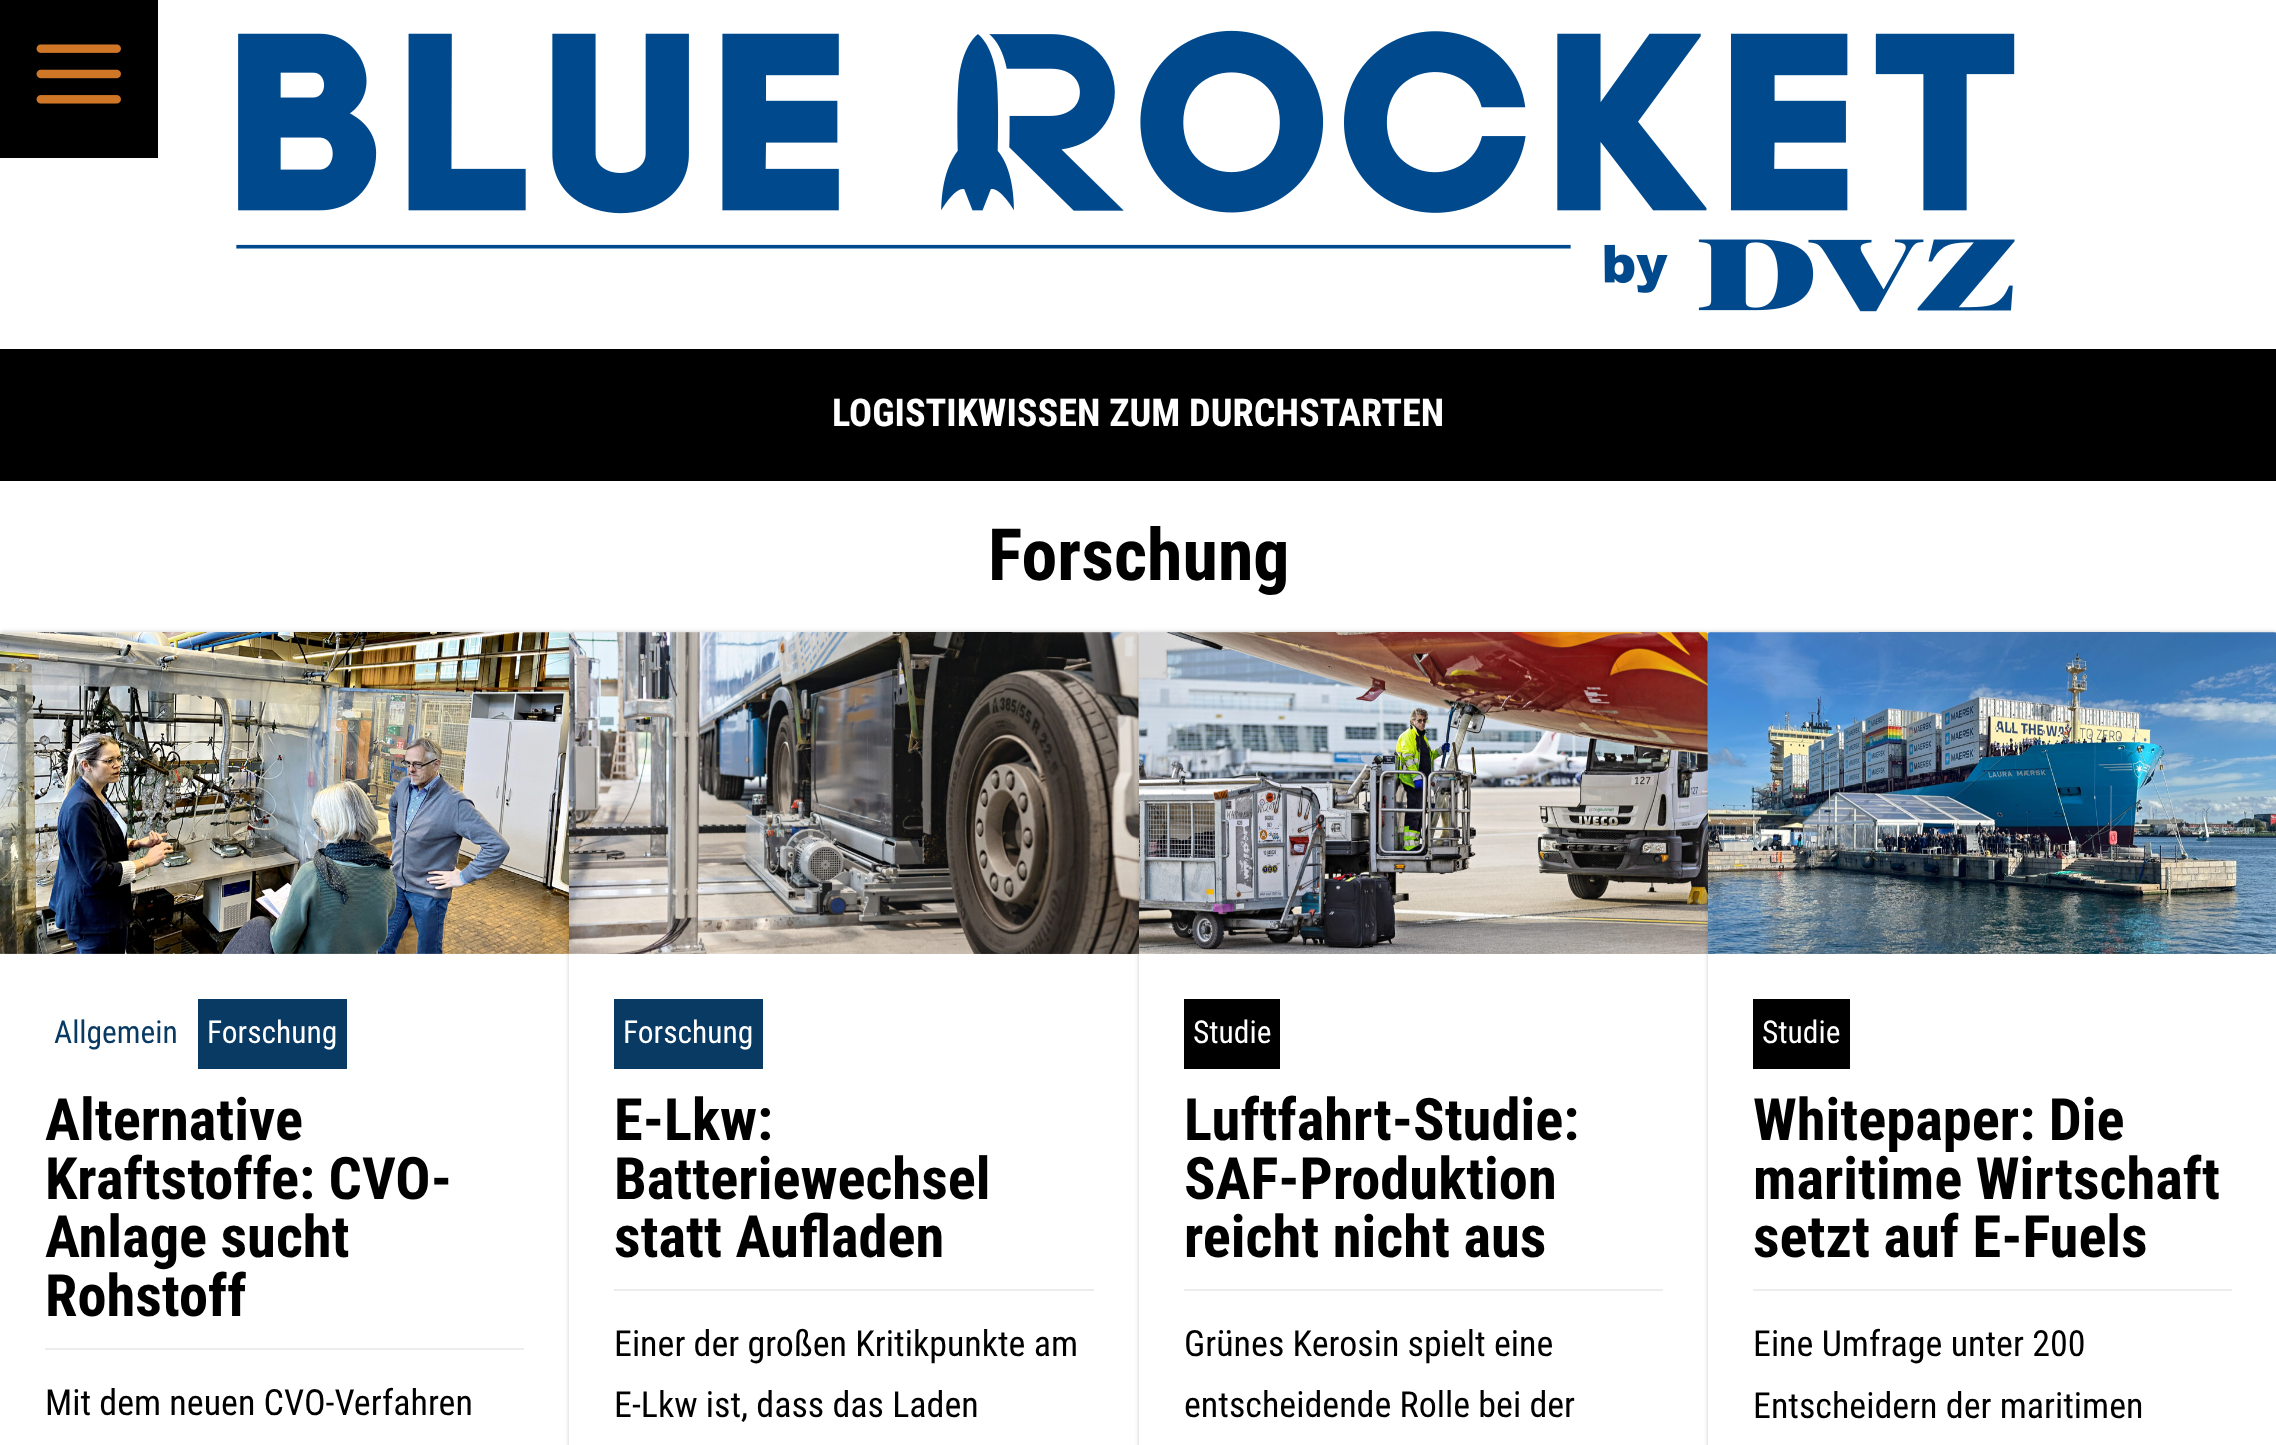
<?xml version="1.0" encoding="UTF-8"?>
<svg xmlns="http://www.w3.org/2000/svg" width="2276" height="1445">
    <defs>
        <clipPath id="clip1"><path d="M 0 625 H 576 V 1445 H 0 Z M 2 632 H 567 C 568 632 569 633 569 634 V 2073 C 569 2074 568 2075 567 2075 H 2 C 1 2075 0 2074 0 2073 V 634 C 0 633 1 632 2 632 Z" clip-rule="evenodd"/></clipPath>
        <filter id="blur1" x="-50%" y="-200%" width="200%" height="500%"><feGaussianBlur stdDeviation="2"/></filter>
    </defs>
    <rect width="100%" height="100%" fill="#FFFFFF"/>
    <rect x="0" y="349" width="2276" height="132" fill="#000000"/>
    <rect x="0" y="0" width="158" height="158" fill="#000000"/>
    <image x="36" y="44" width="85" height="60" href="img_01.png"/>
    <image x="236" y="30" width="1779" height="282" href="img_02.png"/>
    <text x="832" y="426" font-family="Roboto Condensed" font-size="38.25" font-weight="700" fill="#FFFFFF">LOGISTIKWISSEN ZUM DURCHSTARTEN</text>
    <text x="988" y="580" font-family="Roboto Condensed" font-size="72" font-weight="700" fill="#000000">Forschung</text>
    <g clip-path="url(#clip1)">
        <rect x="0" y="632" width="569" height="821" rx="2" fill="#000000" fill-opacity="0.2" filter="url(#blur1)"/>
    </g>
    <image x="0" y="632" width="569" height="322" href="img_03.png"/>
    <text x="54" y="1043" font-family="Roboto Condensed" font-size="31.5" fill="#083A63">Allgemein</text>
    <rect x="198" y="999" width="149" height="70" fill="#083A63"/>
    <text x="207" y="1043" font-family="Roboto Condensed" font-size="31.5" fill="#FFFFFF">Forschung</text>
    <rect x="45" y="1348" width="479" height="2" fill="#EDEDED"/>
    <text font-family="Roboto Condensed" font-size="58.5" font-weight="700" fill="#000000">
        <tspan x="45" y="1140">Alternative</tspan>
        <tspan x="45" y="1199">Kraftstoffe: CVO-</tspan>
        <tspan x="45" y="1257">Anlage sucht</tspan>
        <tspan x="45" y="1316">Rohstoff</tspan>
    </text>
    <text x="45" y="1415" font-family="Roboto Condensed" font-size="36" fill="#000000">Mit dem neuen CVO-Verfahren</text>
    <rect x="569" y="632" width="570" height="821" rx="2" fill="#000000" fill-opacity="0.2" filter="url(#blur1)"/>
    <image x="569" y="632" width="570" height="322" href="img_04.png"/>
    <rect x="569" y="954" width="570" height="491" fill="#FFFFFF"/>
    <rect x="614" y="999" width="149" height="70" fill="#083A63"/>
    <text x="623" y="1043" font-family="Roboto Condensed" font-size="31.5" fill="#FFFFFF">Forschung</text>
    <rect x="614" y="1289" width="480" height="2" fill="#EDEDED"/>
    <text font-family="Roboto Condensed" font-size="58.5" font-weight="700" fill="#000000">
        <tspan x="614" y="1140">E-Lkw:</tspan>
        <tspan x="614" y="1199">Batteriewechsel</tspan>
        <tspan x="614" y="1257">statt Aufladen</tspan>
    </text>
    <text font-family="Roboto Condensed" font-size="36" fill="#000000">
        <tspan x="614" y="1356">Einer der großen Kritikpunkte am</tspan>
        <tspan x="614" y="1417">E-Lkw ist, dass das Laden</tspan>
    </text>
    <rect x="1139" y="632" width="569" height="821" rx="2" fill="#000000" fill-opacity="0.2" filter="url(#blur1)"/>
    <image x="1139" y="632" width="569" height="322" href="img_05.png"/>
    <rect x="1139" y="954" width="569" height="491" fill="#FFFFFF"/>
    <rect x="1184" y="999" width="96" height="70" fill="#000000"/>
    <text x="1193" y="1043" font-family="Roboto Condensed" font-size="31.5" fill="#FFFFFF">Studie</text>
    <rect x="1184" y="1289" width="479" height="2" fill="#EDEDED"/>
    <text font-family="Roboto Condensed" font-size="58.5" font-weight="700" fill="#000000">
        <tspan x="1184" y="1140">Luftfahrt-Studie:</tspan>
        <tspan x="1184" y="1199">SAF-Produktion</tspan>
        <tspan x="1184" y="1257">reicht nicht aus</tspan>
    </text>
    <text font-family="Roboto Condensed" font-size="36" fill="#000000">
        <tspan x="1184" y="1356">Grünes Kerosin spielt eine</tspan>
        <tspan x="1184" y="1417">entscheidende Rolle bei der</tspan>
    </text>
    <rect x="1708" y="632" width="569" height="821" rx="2" fill="#000000" fill-opacity="0.2" filter="url(#blur1)"/>
    <image x="1708" y="632" width="568" height="322" href="img_06.png"/>
    <rect x="1708" y="954" width="568" height="491" fill="#FFFFFF"/>
    <rect x="1753" y="999" width="97" height="70" fill="#000000"/>
    <text x="1762" y="1043" font-family="Roboto Condensed" font-size="31.5" fill="#FFFFFF">Studie</text>
    <rect x="1753" y="1289" width="479" height="2" fill="#EDEDED"/>
    <text font-family="Roboto Condensed" font-size="58.5" font-weight="700" fill="#000000">
        <tspan x="1753" y="1140">Whitepaper: Die</tspan>
        <tspan x="1753" y="1199">maritime Wirtschaft</tspan>
        <tspan x="1753" y="1257">setzt auf E-Fuels</tspan>
    </text>
    <text font-family="Roboto Condensed" font-size="36" fill="#000000">
        <tspan x="1753" y="1356">Eine Umfrage unter 200</tspan>
        <tspan x="1753" y="1418">Entscheidern der maritimen</tspan>
    </text>
</svg>
